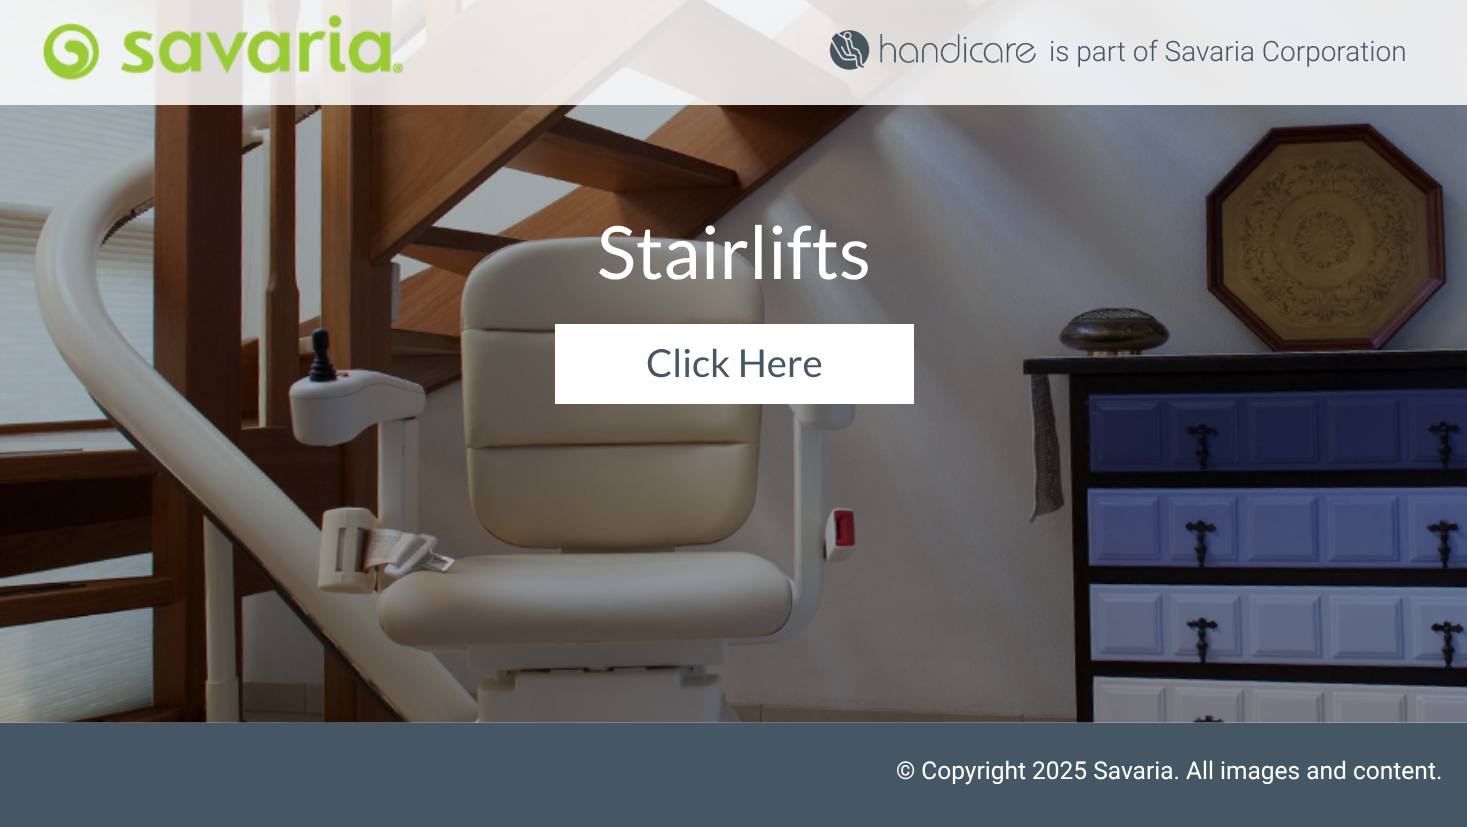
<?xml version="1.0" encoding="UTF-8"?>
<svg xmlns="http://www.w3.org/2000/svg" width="1467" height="827">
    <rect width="100%" height="100%" fill="#FFFFFF"/>
    <image x="0" y="0" width="1467" height="723" href="img_03.png"/>
    <rect x="0" y="0" width="1467" height="105" fill="#FFFFFF" fill-opacity="0.85"/>
    <image x="43" y="15" width="360" height="66" href="img_01.png"/>
    <image x="829" y="30" width="207" height="41" href="img_02.png"/>
    <text x="1049" y="61" font-family="Roboto" font-size="28" font-weight="300" fill="#455765">is part of Savaria Corporation</text>
    <text x="597" y="279" font-family="Lato" font-size="73.5" fill="#FFFFFF">Stairlifts</text>
    <rect x="555" y="324" width="359" height="80" fill="#FFFFFF"/>
    <text x="646" y="377" font-family="Lato" font-size="38.5" fill="#455765">Click Here</text>
    <image x="0" y="722" width="1467" height="1" href="img_04.png"/>
    <rect x="0" y="723" width="1467" height="104" fill="#455765"/>
    <text x="896" y="779" font-family="Roboto" font-size="24.5" fill="#FFFFFF">© Copyright 2025 Savaria. All images and content.</text>
</svg>
